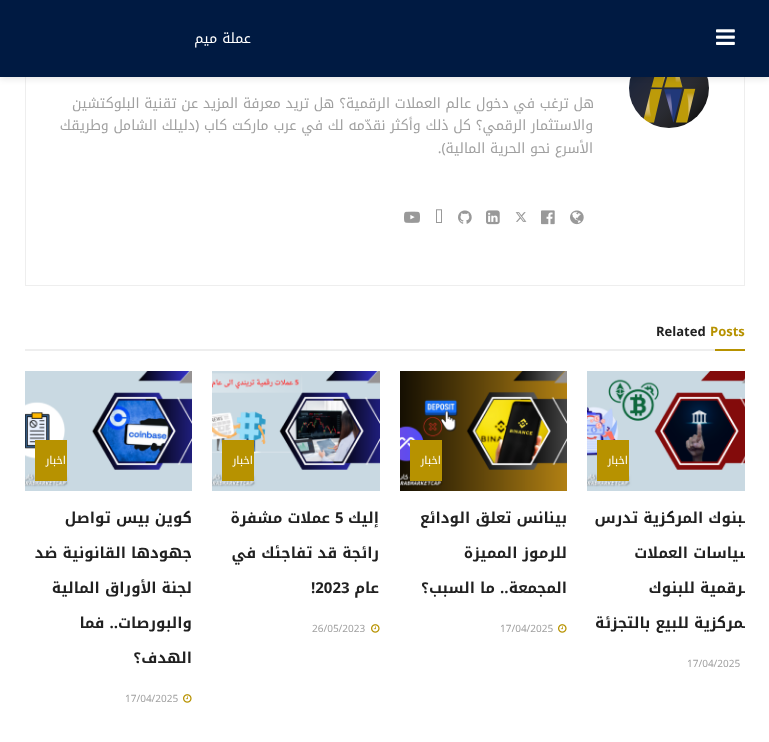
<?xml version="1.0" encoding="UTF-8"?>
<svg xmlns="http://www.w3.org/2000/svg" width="769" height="742">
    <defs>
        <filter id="blur1" x="-50%" y="-200%" width="200%" height="500%"><feGaussianBlur stdDeviation="3"/></filter>
        <clipPath id="clip1"><rect x="25" y="371" width="720" height="370"/></clipPath>
    </defs>
    <rect width="100%" height="100%" fill="#FFFFFF"/>
    <rect x="25.5" y="17.5" width="719" height="268" fill="none" stroke="#EEEEEE"/>
    <image x="629" y="77" width="80" height="51" href="img_02.png"/>
    <rect x="0" y="2" width="769" height="77" fill="#000000" fill-opacity="0.1" filter="url(#blur1)"/>
    <rect x="0" y="0" width="769" height="77" fill="#001A42"/>
    <image x="716" y="29" width="19" height="16" href="img_01.png"/>
    <text x="251" y="43" font-family="Noto Kufi Arabic" font-size="14" direction="rtl" fill="#FFFFFF">عملة ميم</text>
    <text x="594" y="108" font-family="Noto Kufi Arabic" font-size="14" direction="rtl" fill="#A0A0A0">هل ترغب في دخول عالم العملات الرقمية؟ هل تريد معرفة المزيد عن تقنية البلوكتشين</text>
    <text font-family="Noto Kufi Arabic" font-size="14" direction="rtl" fill="#A0A0A0">
        <tspan x="593" y="130">والاستثمار الرقمي؟ كل ذلك وأكثر نقدّمه لك في عرب ماركت كاب (دليلك الشامل وطريقك</tspan>
        <tspan x="593" y="153">الأسرع نحو الحرية المالية).</tspan>
    </text>
    <image x="570" y="210" width="14" height="15" href="img_03.png"/>
    <image x="541" y="210" width="14" height="15" href="img_04.png"/>
    <image x="515" y="212" width="12" height="10" href="img_05.png"/>
    <image x="486" y="210" width="14" height="15" href="img_06.png"/>
    <image x="458" y="210" width="14" height="14" href="img_07.png"/>
    <image x="436" y="209" width="6" height="14" href="img_08.png"/>
    <image x="404" y="211" width="16" height="12" href="img_09.png"/>
    <rect x="25" y="349" width="690" height="2" fill="#EEEEEE"/>
    <text x="710" y="336" font-family="Noto Kufi Arabic" font-size="13" font-weight="700" fill="#B79200">Posts</text>
    <text x="656" y="336" font-family="Noto Kufi Arabic" font-size="13" font-weight="700" fill="#212121">Related</text>
    <rect x="715" y="349" width="30" height="2" fill="#B79200"/>
    <image x="587" y="371" width="158" height="120" href="img_10.png"/>
    <rect x="597" y="440" width="32" height="41" fill="#B79200"/>
    <text x="628" y="464" font-family="Noto Kufi Arabic" font-size="11" letter-spacing="1" direction="rtl" fill="#FFFFFF">اخبار</text>
    <g clip-path="url(#clip1)">
        <text x="754" y="523" font-family="Noto Kufi Arabic" font-size="15" font-weight="700" direction="rtl" fill="#212121">البنوك المركزية تدرس</text>
        <text x="754" y="558" font-family="Noto Kufi Arabic" font-size="15" font-weight="700" direction="rtl" fill="#212121">سياسات العملات</text>
        <text x="754" y="593" font-family="Noto Kufi Arabic" font-size="15" font-weight="700" direction="rtl" fill="#212121">الرقمية للبنوك</text>
        <text x="754" y="628" font-family="Noto Kufi Arabic" font-size="15" font-weight="700" direction="rtl" fill="#212121">المركزية للبيع بالتجزئة</text>
    </g>
    <text x="687" y="667" font-family="Noto Kufi Arabic" font-size="10" fill="#A0A0A0">17/04/2025</text>
    <image x="400" y="371" width="167" height="120" href="img_11.png"/>
    <rect x="410" y="440" width="32" height="41" fill="#B79200"/>
    <text x="441" y="464" font-family="Noto Kufi Arabic" font-size="11" letter-spacing="1" direction="rtl" fill="#FFFFFF">اخبار</text>
    <text x="567" y="523" font-family="Noto Kufi Arabic" font-size="15" font-weight="700" direction="rtl" fill="#212121">بينانس تعلق الودائع</text>
    <text x="567" y="558" font-family="Noto Kufi Arabic" font-size="15" font-weight="700" direction="rtl" fill="#212121">للرموز المميزة</text>
    <text x="567" y="593" font-family="Noto Kufi Arabic" font-size="15" font-weight="700" direction="rtl" fill="#212121">المجمعة.. ما السبب؟</text>
    <image x="558" y="624" width="9" height="9" href="img_12.png"/>
    <text x="500" y="632" font-family="Noto Kufi Arabic" font-size="10" fill="#A0A0A0">17/04/2025</text>
    <image x="212" y="371" width="168" height="120" href="img_13.png"/>
    <rect x="222" y="440" width="32" height="41" fill="#B79200"/>
    <text x="253" y="464" font-family="Noto Kufi Arabic" font-size="11" letter-spacing="1" direction="rtl" fill="#FFFFFF">اخبار</text>
    <text x="379" y="523" font-family="Noto Kufi Arabic" font-size="15" font-weight="700" direction="rtl" fill="#212121">إليك</text>
    <text x="335" y="523" font-family="Noto Kufi Arabic" font-size="15" font-weight="700" fill="#212121">5</text>
    <text x="330" y="523" font-family="Noto Kufi Arabic" font-size="15" font-weight="700" direction="rtl" fill="#212121">عملات مشفرة</text>
    <text x="379" y="558" font-family="Noto Kufi Arabic" font-size="15" font-weight="700" direction="rtl" fill="#212121">رائجة قد تفاجئك في</text>
    <text x="379" y="593" font-family="Noto Kufi Arabic" font-size="15" font-weight="700" direction="rtl" fill="#212121">عام</text>
    <text x="311" y="593" font-family="Noto Kufi Arabic" font-size="15" font-weight="700" fill="#212121">!2023</text>
    <image x="371" y="624" width="9" height="9" href="img_12.png"/>
    <text x="312" y="632" font-family="Noto Kufi Arabic" font-size="10" fill="#A0A0A0">26/05/2023</text>
    <image x="25" y="371" width="167" height="120" href="img_14.png"/>
    <rect x="35" y="440" width="32" height="41" fill="#B79200"/>
    <text x="66" y="464" font-family="Noto Kufi Arabic" font-size="11" letter-spacing="1" direction="rtl" fill="#FFFFFF">اخبار</text>
    <text x="192" y="523" font-family="Noto Kufi Arabic" font-size="15" font-weight="700" direction="rtl" fill="#212121">كوين بيس تواصل</text>
    <text x="192" y="558" font-family="Noto Kufi Arabic" font-size="15" font-weight="700" direction="rtl" fill="#212121">جهودها القانونية ضد</text>
    <text x="192" y="593" font-family="Noto Kufi Arabic" font-size="15" font-weight="700" direction="rtl" fill="#212121">لجنة الأوراق المالية</text>
    <text x="192" y="628" font-family="Noto Kufi Arabic" font-size="15" font-weight="700" direction="rtl" fill="#212121">والبورصات.. فما</text>
    <text x="192" y="663" font-family="Noto Kufi Arabic" font-size="15" font-weight="700" direction="rtl" fill="#212121">الهدف؟</text>
    <image x="183" y="694" width="9" height="9" href="img_12.png"/>
    <text x="125" y="702" font-family="Noto Kufi Arabic" font-size="10" fill="#A0A0A0">17/04/2025</text>
</svg>
